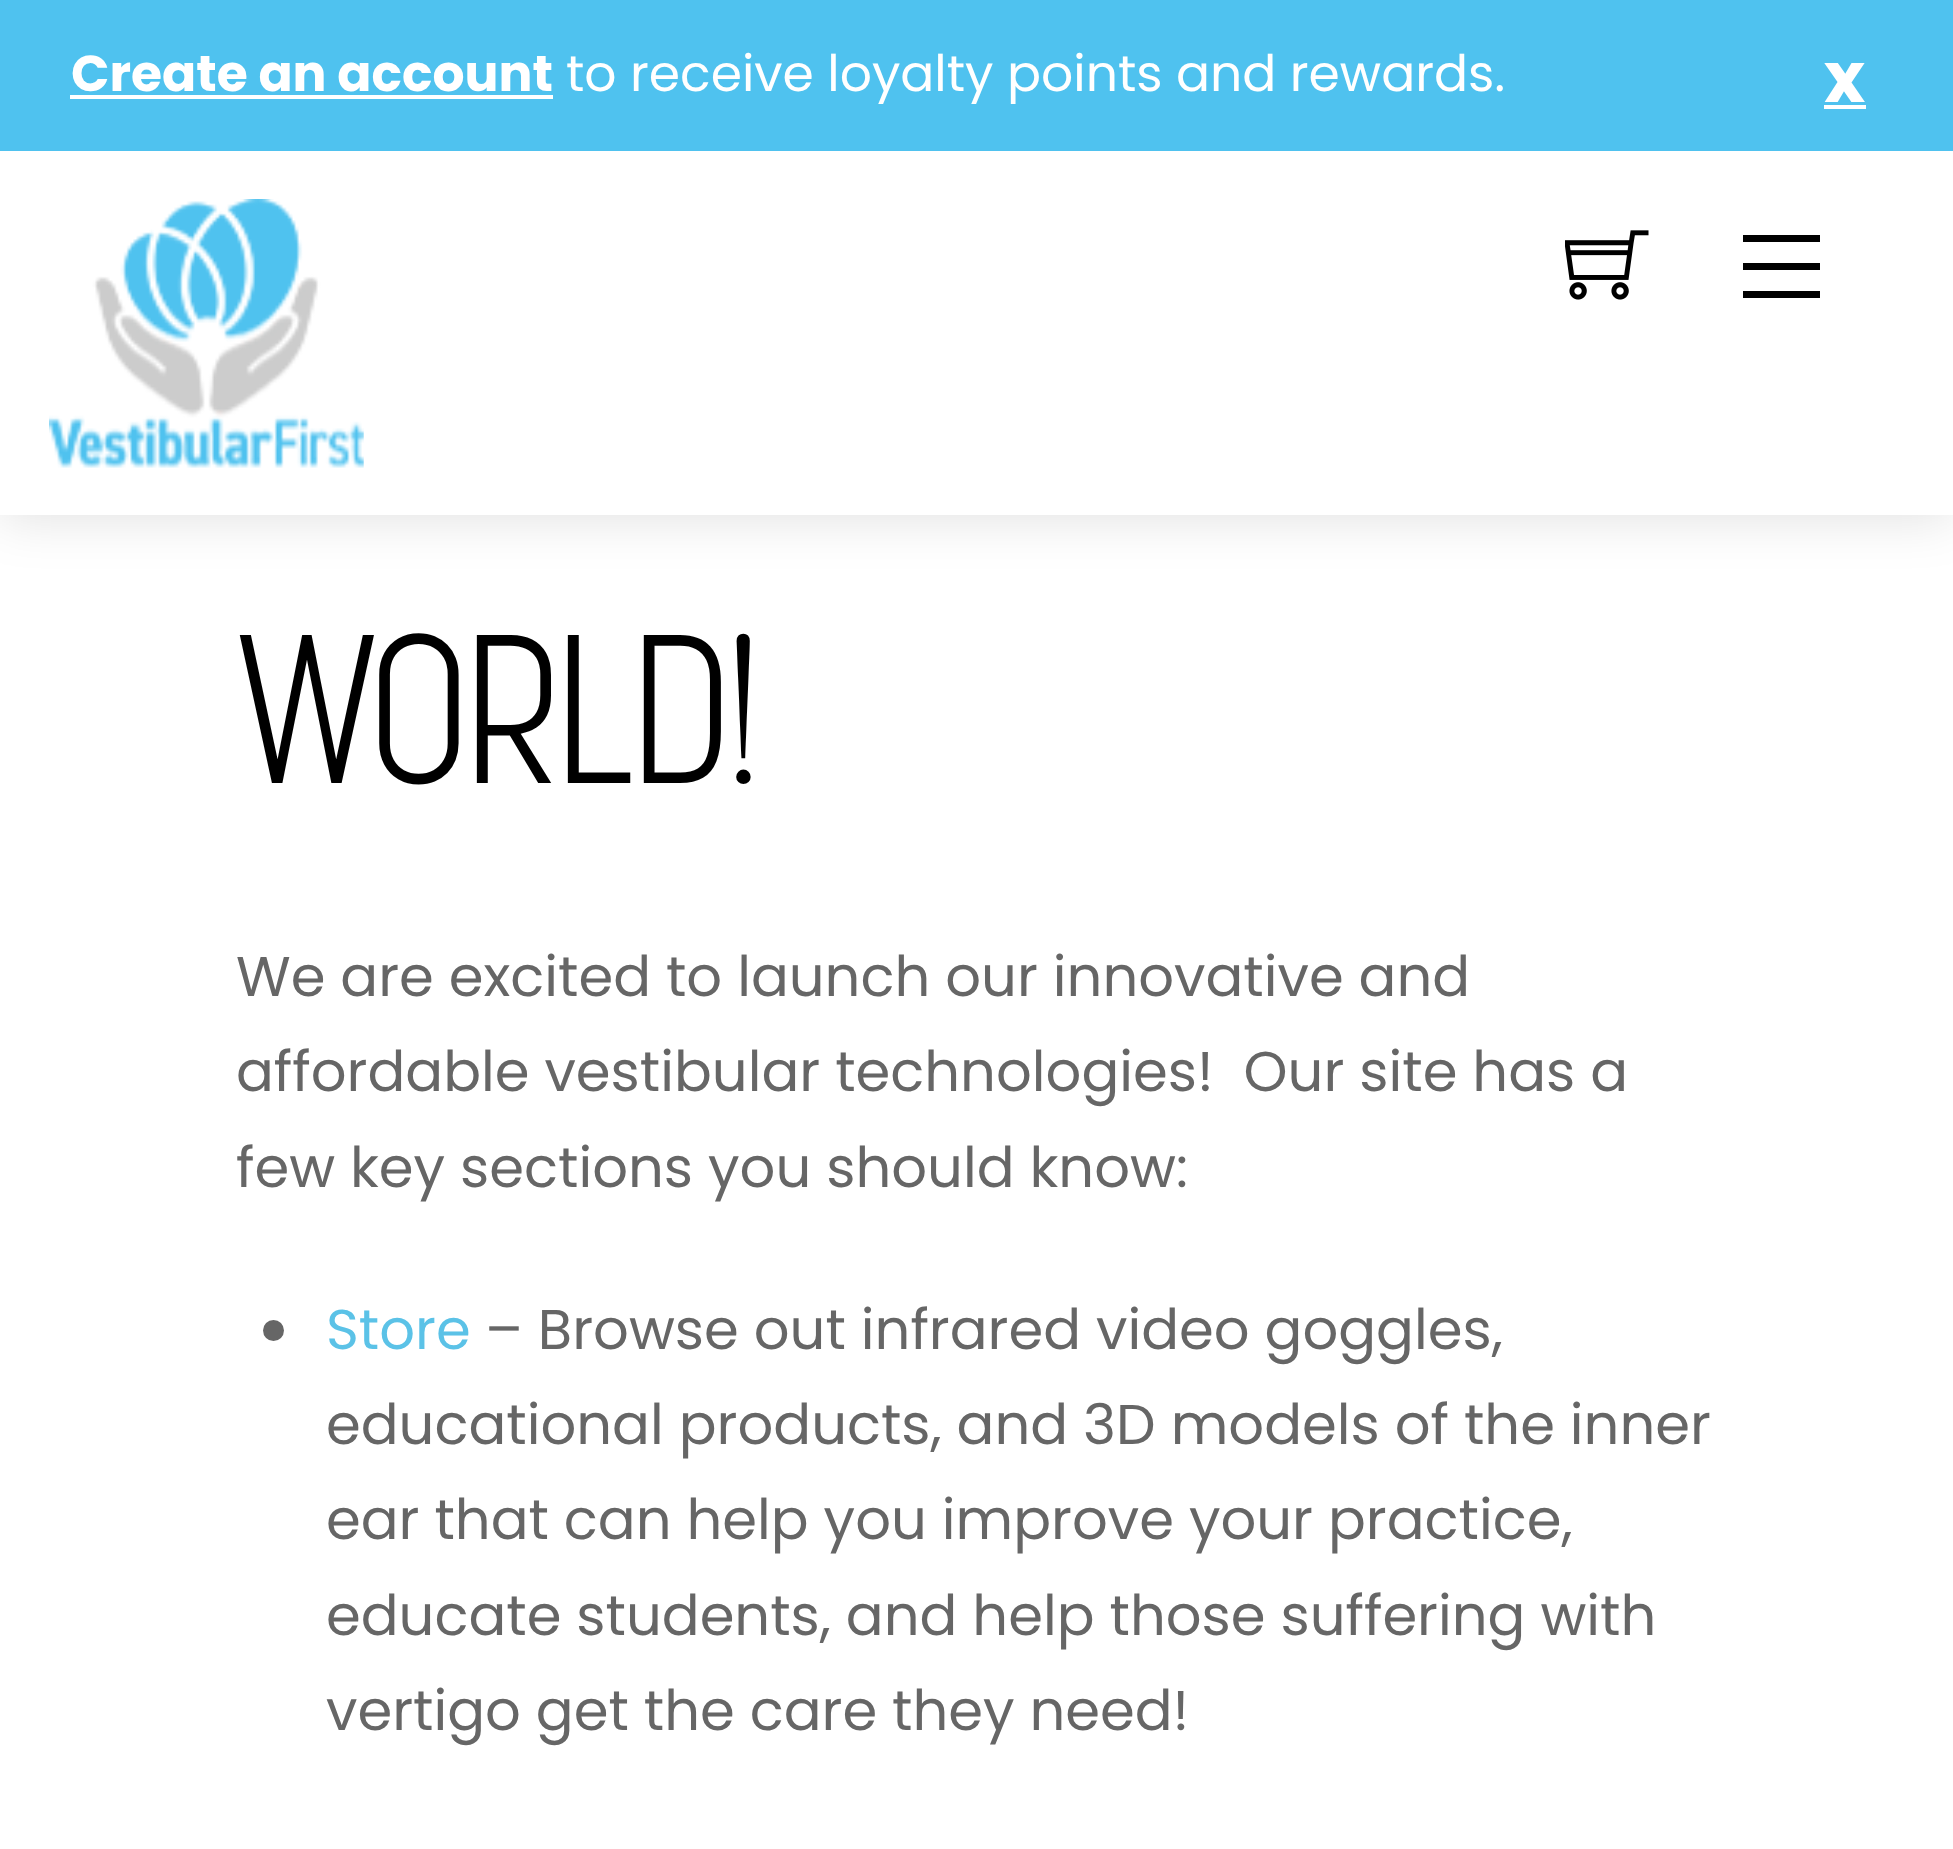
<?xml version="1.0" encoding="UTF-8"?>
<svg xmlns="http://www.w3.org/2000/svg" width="1953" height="1849">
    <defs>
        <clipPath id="clip1"><path d="M 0 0 H 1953 V 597 H 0 Z M 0 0 H 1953 V 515 H 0 Z" clip-rule="evenodd"/></clipPath>
        <filter id="blur1" x="-50%" y="-200%" width="200%" height="500%"><feGaussianBlur stdDeviation="26"/></filter>
    </defs>
    <rect width="100%" height="100%" fill="#FFFFFF"/>
    <g clip-path="url(#clip1)">
        <rect x="0" y="4" width="1953" height="514" fill="#000000" fill-opacity="0.12" filter="url(#blur1)"/>
    </g>
    <rect x="0" y="514" width="1953" height="1" fill="#FFFFFF" fill-opacity="0.9"/>
    <rect x="0" y="0" width="1953" height="151" fill="#4FC2EF"/>
    <text x="71" y="91" font-family="Poppins" font-size="50.4" font-weight="700" fill="#FFFFFF">Create an account</text>
    <rect x="70" y="95" width="483" height="4" fill="#FFFFFF"/>
    <text x="566" y="91" font-family="Poppins" font-size="50.4" fill="#FFFFFF">to receive loyalty points and rewards.</text>
    <rect x="1824" y="105" width="42" height="4" fill="#FFFFFF"/>
    <text x="1824" y="102" font-family="Poppins" font-size="70" font-weight="700" fill="#FFFFFF">x</text>
    <image x="49" y="199" width="315" height="269" href="img_01.png"/>
    <image x="1565" y="230" width="84" height="70" href="img_02.png"/>
    <rect x="1743" y="235" width="77" height="7" fill="#000000"/>
    <rect x="1743" y="291" width="77" height="7" fill="#000000"/>
    <rect x="1743" y="263" width="77" height="7" fill="#000000"/>
    <text x="236" y="783" font-family="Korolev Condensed" font-size="210" font-weight="300" letter-spacing="-6.25" fill="#000000">WORLD!</text>
    <text font-family="Poppins" font-size="56" fill="#666666" xml:space="preserve"><tspan x="236" y="996">We are excited to launch our innovative and</tspan><tspan x="236" y="1091">affordable vestibular technologies!  Our site has a</tspan><tspan x="236" y="1187">few key sections you should know:</tspan></text>
    <circle cx="273.5" cy="1330.5" r="10.5" fill="#666666"/>
    <text x="326" y="1349" font-family="Poppins" font-size="56" fill="#5BC2E7">Store</text>
    <text x="485" y="1349" font-family="Poppins" font-size="56" fill="#666666">– Browse out infrared video goggles,</text>
    <text font-family="Poppins" font-size="56" fill="#666666">
        <tspan x="326" y="1444">educational products, and 3D models of the inner</tspan>
        <tspan x="326" y="1539">ear that can help you improve your practice,</tspan>
        <tspan x="326" y="1635">educate students, and help those suffering with</tspan>
        <tspan x="326" y="1730">vertigo get the care they need!</tspan>
    </text>
</svg>
